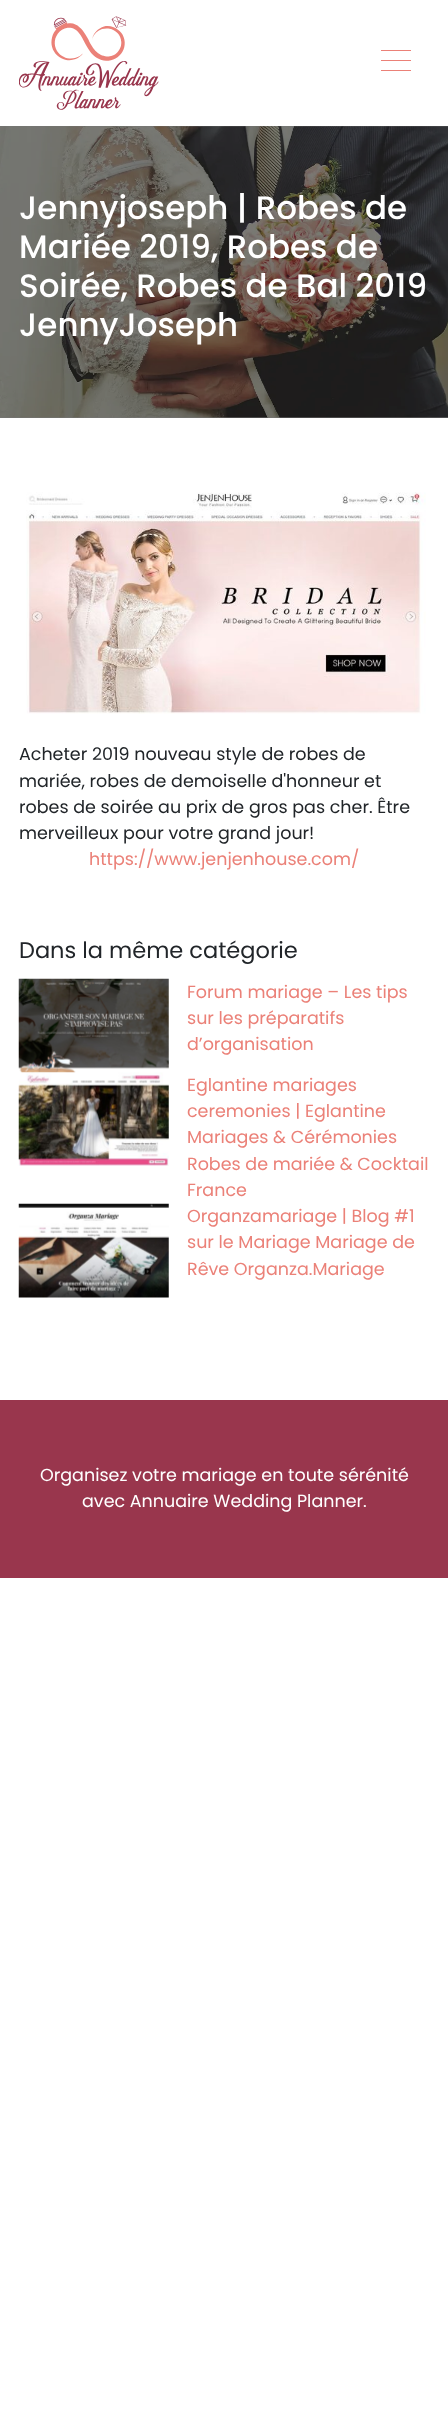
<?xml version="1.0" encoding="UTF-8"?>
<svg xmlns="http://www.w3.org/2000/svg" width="448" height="2410">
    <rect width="100%" height="100%" fill="#FFFFFF"/>
    <image x="19" y="16" width="140" height="94" href="img_01.png"/>
    <rect x="381" y="50" width="30" height="1" fill="#EB8178"/>
    <rect x="381" y="60" width="30" height="1" fill="#EB8178"/>
    <rect x="381" y="70" width="30" height="1" fill="#EB8178"/>
    <rect x="0" y="126" width="448" height="292" fill="#777777"/>
    <image x="0" y="126" width="448" height="292" href="img_02.png"/>
    <text font-family="Poppins" font-size="32.5" font-weight="500" fill="#FFFFFF">
        <tspan x="19" y="219">Jennyjoseph | Robes de</tspan>
        <tspan x="19" y="258">Mariée 2019, Robes de</tspan>
        <tspan x="19" y="297">Soirée, Robes de Bal 2019</tspan>
        <tspan x="19" y="336">JennyJoseph</tspan>
    </text>
    <image x="26" y="492" width="400" height="222" href="img_03.png"/>
    <text font-family="Poppins" font-size="17.5" fill="#212529">
        <tspan x="19" y="760">Acheter 2019 nouveau style de robes de</tspan>
        <tspan x="19" y="787">mariée, robes de demoiselle d'honneur et</tspan>
        <tspan x="19" y="813">robes de soirée au prix de gros pas cher. Être</tspan>
        <tspan x="19" y="839">merveilleux pour votre grand jour!</tspan>
    </text>
    <text x="89" y="865" font-family="Poppins" font-size="17.5" fill="#EB8178">https://www.jenjenhouse.com/</text>
    <text x="19" y="958" font-family="Poppins" font-size="22.5" fill="#212529">Dans la même catégorie</text>
    <image x="18" y="978" width="151" height="95" href="img_04.png"/>
    <text font-family="Poppins" font-size="17.5" fill="#EB8178">
        <tspan x="187" y="998">Forum mariage – Les tips</tspan>
        <tspan x="187" y="1024">sur les préparatifs</tspan>
        <tspan x="187" y="1050">d’organisation</tspan>
    </text>
    <image x="18" y="1072" width="151" height="94" href="img_05.png"/>
    <text font-family="Poppins" font-size="17.5" fill="#EB8178">
        <tspan x="187" y="1091">Eglantine mariages</tspan>
        <tspan x="187" y="1117">ceremonies | Eglantine</tspan>
        <tspan x="187" y="1143">Mariages &amp; Cérémonies</tspan>
        <tspan x="187" y="1170">Robes de mariée &amp; Cocktail</tspan>
        <tspan x="187" y="1196">France</tspan>
    </text>
    <image x="18" y="1203" width="151" height="95" href="img_06.png"/>
    <text font-family="Poppins" font-size="17.5" fill="#EB8178">
        <tspan x="187" y="1222">Organzamariage | Blog #1</tspan>
        <tspan x="187" y="1248">sur le Mariage Mariage de</tspan>
        <tspan x="187" y="1275">Rêve Organza.Mariage</tspan>
    </text>
    <rect x="0" y="1400" width="448" height="178" fill="#99364D"/>
    <text x="40" y="1481" font-family="Poppins" font-size="17.5" fill="#FFFFFF">Organisez votre mariage en toute sérénité</text>
    <text x="82" y="1507" font-family="Poppins" font-size="17.5" fill="#FFFFFF">avec Annuaire Wedding Planner.</text>
</svg>
